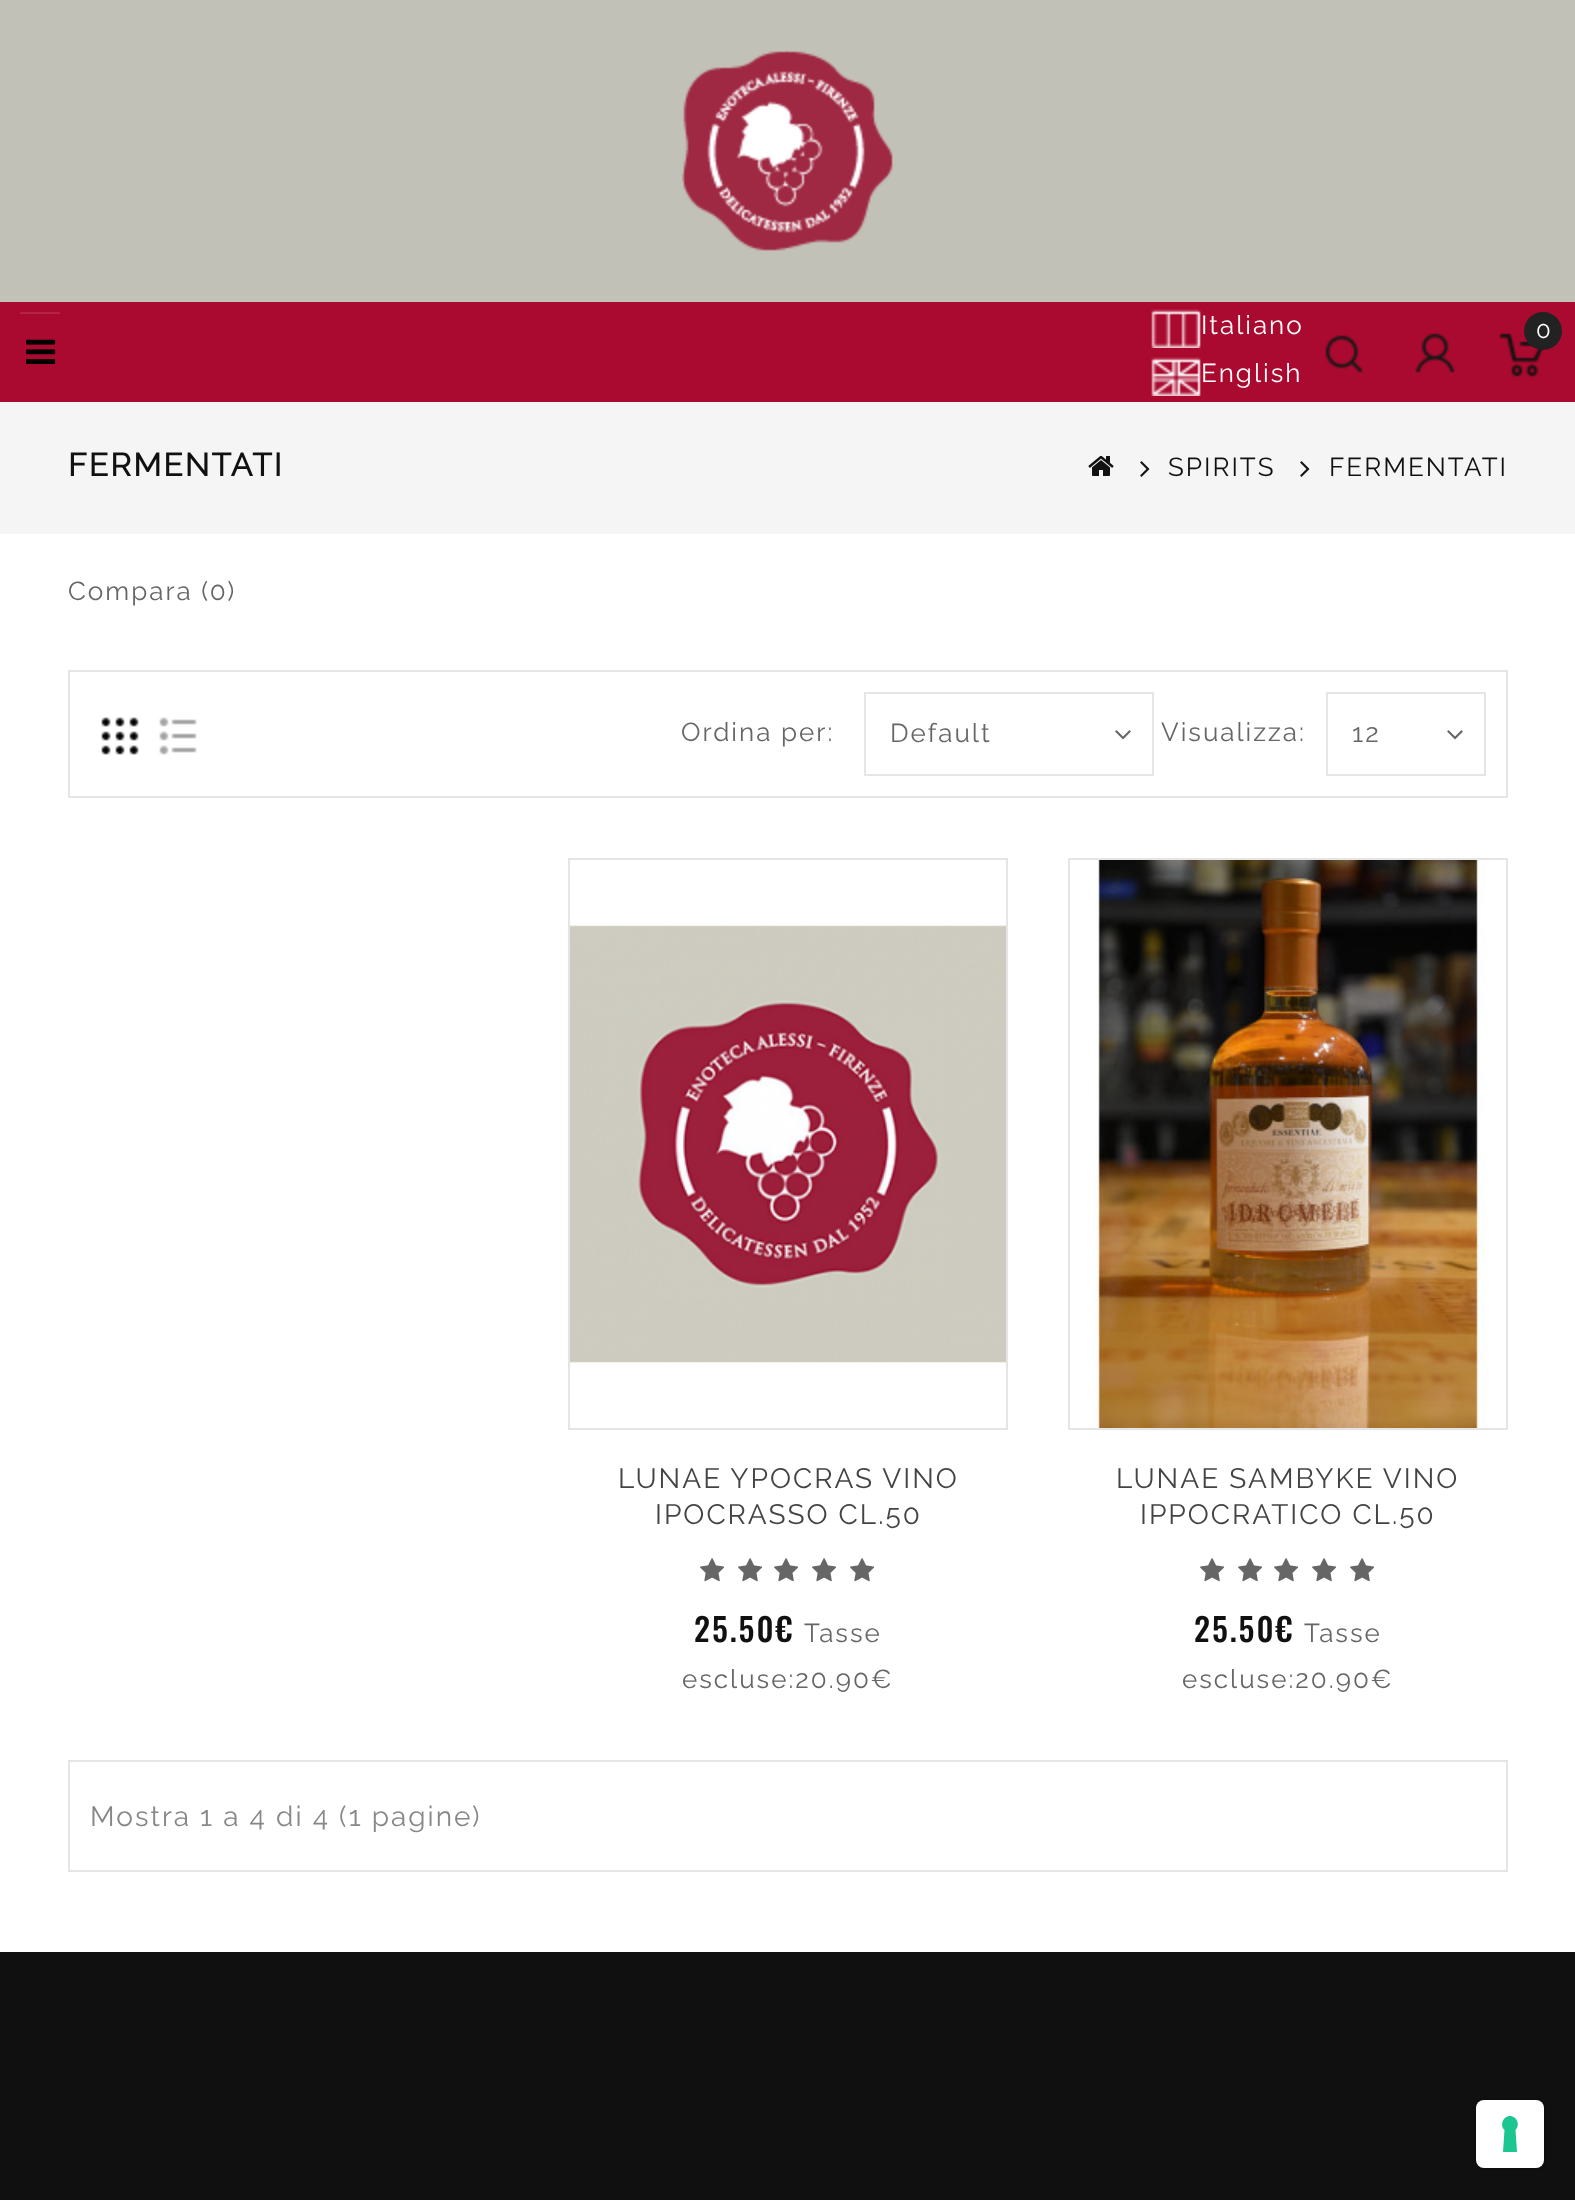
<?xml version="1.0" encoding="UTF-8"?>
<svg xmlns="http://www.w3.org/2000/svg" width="1575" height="2200">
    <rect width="100%" height="100%" fill="#FFFFFF"/>
    <rect x="0" y="0" width="1575" height="302" fill="#C2C1B7"/>
    <image x="682" y="50" width="211" height="201" href="img_01.png"/>
    <rect x="0" y="302" width="1575" height="100" fill="#AA0A2F"/>
    <rect x="20" y="312" width="40" height="2" fill="#B32344"/>
    <image x="26" y="339" width="30" height="25" href="img_02.png"/>
    <image x="1151" y="309" width="50" height="39" href="img_03.png"/>
    <text x="1201" y="334" font-family="Raleway" font-size="26" font-weight="100" letter-spacing="2" fill="#FFFFFF">Italiano</text>
    <image x="1151" y="357" width="50" height="39" href="img_04.png"/>
    <text x="1201" y="382" font-family="Raleway" font-size="26" font-weight="100" letter-spacing="2" fill="#FFFFFF">English</text>
    <image x="1499" y="333" width="45" height="44" href="img_05.png"/>
    <circle cx="1543" cy="331" r="19" fill="#222222"/>
    <text x="1536" y="338" font-family="Raleway" font-size="24" font-weight="100" fill="#FFFFFF">0</text>
    <image x="1325" y="335" width="38" height="38" href="img_06.png"/>
    <image x="1415" y="333" width="40" height="40" href="img_07.png"/>
    <rect x="0" y="402" width="1575" height="132" fill="#F5F5F5"/>
    <text x="68" y="476" font-family="Raleway" font-size="32" font-weight="700" letter-spacing="2" fill="#111111">FERMENTATI</text>
    <image x="1088" y="456" width="26" height="20" href="img_08.png"/>
    <image x="1140" y="461" width="10" height="16" href="img_09.png"/>
    <text x="1168" y="476" font-family="Raleway" font-size="26" font-weight="100" letter-spacing="2" fill="#111111">SPIRITS</text>
    <image x="1300" y="461" width="10" height="16" href="img_09.png"/>
    <text x="1329" y="476" font-family="Raleway" font-size="26" font-weight="100" letter-spacing="2" fill="#111111">FERMENTATI</text>
    <text x="68" y="600" font-family="Raleway" font-size="26" font-weight="100" letter-spacing="2" fill="#666666">Compara (0)</text>
    <rect x="69" y="671" width="1438" height="126" fill="none" stroke="#E5E5E5" stroke-width="2"/>
    <image x="101" y="717" width="38" height="38" href="img_10.png"/>
    <image x="159" y="717" width="38" height="38" href="img_11.png"/>
    <text x="681" y="741" font-family="Raleway" font-size="26" font-weight="100" letter-spacing="2" fill="#666666">Ordina per:</text>
    <rect x="865" y="693" width="288" height="82" fill="none" stroke="#E5E5E5" stroke-width="2"/>
    <text x="890" y="742" font-family="Raleway" font-size="26" font-weight="100" letter-spacing="2" fill="#666666">Default</text>
    <image x="1115" y="730" width="16" height="10" href="img_12.png"/>
    <text x="1161" y="741" font-family="Raleway" font-size="26" font-weight="100" letter-spacing="2" fill="#666666">Visualizza:</text>
    <rect x="1327" y="693" width="158" height="82" fill="none" stroke="#E5E5E5" stroke-width="2"/>
    <text x="1352" y="742" font-family="Raleway" font-size="26" font-weight="100" letter-spacing="2" fill="#666666">12</text>
    <image x="1447" y="730" width="16" height="10" href="img_12.png"/>
    <rect x="569" y="859" width="438" height="570" fill="none" stroke="#E5E5E5" stroke-width="2"/>
    <image x="570" y="925" width="436" height="438" href="img_13.png"/>
    <text x="618" y="1488" font-family="Raleway" font-size="28" font-weight="100" letter-spacing="2" fill="#444444">LUNAE YPOCRAS VINO</text>
    <text x="655" y="1524" font-family="Raleway" font-size="28" font-weight="100" letter-spacing="2" fill="#444444">IPOCRASSO CL.50</text>
    <image x="700" y="1558" width="25" height="24" href="img_14.png"/>
    <image x="738" y="1558" width="25" height="24" href="img_14.png"/>
    <image x="774" y="1558" width="25" height="24" href="img_14.png"/>
    <image x="812" y="1558" width="25" height="24" href="img_14.png"/>
    <image x="850" y="1558" width="25" height="24" href="img_14.png"/>
    <text x="694" y="1642" font-family="Oswald" font-size="32" font-weight="500" letter-spacing="2" fill="#111111">25.50€</text>
    <text x="804" y="1642" font-family="Raleway" font-size="26" font-weight="100" letter-spacing="2" fill="#666666">Tasse</text>
    <text x="682" y="1688" font-family="Raleway" font-size="26" font-weight="100" letter-spacing="2" fill="#666666">escluse:20.90€</text>
    <rect x="1069" y="859" width="438" height="570" fill="none" stroke="#E5E5E5" stroke-width="2"/>
    <image x="1094" y="860" width="392" height="568" href="img_15.png"/>
    <text x="1116" y="1488" font-family="Raleway" font-size="28" font-weight="100" letter-spacing="2" fill="#444444">LUNAE SAMBYKE VINO</text>
    <text x="1140" y="1524" font-family="Raleway" font-size="28" font-weight="100" letter-spacing="2" fill="#444444">IPPOCRATICO CL.50</text>
    <image x="1200" y="1558" width="25" height="24" href="img_14.png"/>
    <image x="1238" y="1558" width="25" height="24" href="img_14.png"/>
    <image x="1274" y="1558" width="25" height="24" href="img_14.png"/>
    <image x="1312" y="1558" width="25" height="24" href="img_14.png"/>
    <image x="1350" y="1558" width="25" height="24" href="img_14.png"/>
    <text x="1194" y="1642" font-family="Oswald" font-size="32" font-weight="500" letter-spacing="2" fill="#111111">25.50€</text>
    <text x="1304" y="1642" font-family="Raleway" font-size="26" font-weight="100" letter-spacing="2" fill="#666666">Tasse</text>
    <text x="1182" y="1688" font-family="Raleway" font-size="26" font-weight="100" letter-spacing="2" fill="#666666">escluse:20.90€</text>
    <rect x="69" y="1761" width="1438" height="110" fill="none" stroke="#E5E5E5" stroke-width="2"/>
    <text x="90" y="1826" font-family="Raleway" font-size="28" font-weight="100" letter-spacing="2" fill="#878787">Mostra 1 a 4 di 4 (1 pagine)</text>
    <rect x="0" y="1952" width="1575" height="248" fill="#111010"/>
    <rect x="1475" y="2099" width="70" height="70" rx="9" fill="none" stroke="#0E0E0E" stroke-width="2"/>
    <rect x="1476" y="2100" width="68" height="68" rx="8" fill="#FFFFFF"/>
    <path d="M 1510 2116 C 1517 2116 1520.5 2125.5 1515.5 2130 L 1517 2152 H 1503 L 1504.5 2130 C 1499.5 2125.5 1503 2116 1510 2116 Z" fill="#1CC691" fill-rule="evenodd"/>
</svg>
